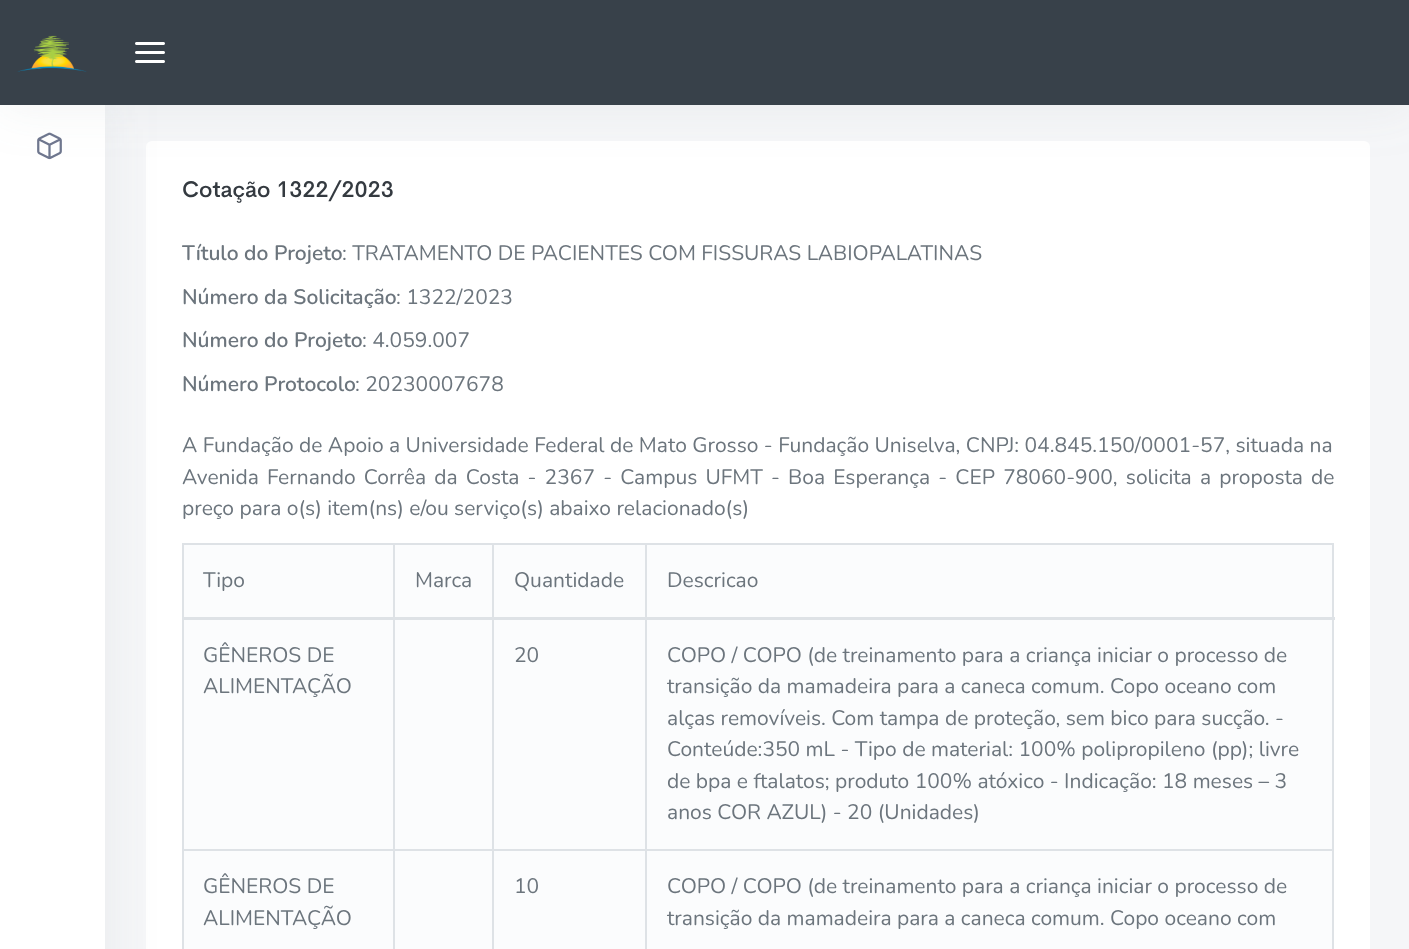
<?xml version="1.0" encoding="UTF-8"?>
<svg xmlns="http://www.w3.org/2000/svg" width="1409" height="949">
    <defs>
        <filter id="blur1" x="-50%" y="-200%" width="200%" height="500%"><feGaussianBlur stdDeviation="26"/></filter>
    </defs>
    <rect width="100%" height="100%" fill="#F5F6F8"/>
    <rect x="146" y="141" width="1224" height="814" rx="6" fill="#FFFFFF"/>
    <rect x="182" y="543" width="1152" height="2" fill="#DEE2E6"/>
    <rect x="182" y="543" width="2" height="406" fill="#DEE2E6"/>
    <rect x="184" y="545" width="1148" height="404" fill="#FBFCFD"/>
    <rect x="1332" y="543" width="2" height="406" fill="#DEE2E6"/>
    <rect x="645" y="849" width="689" height="2" fill="#DEE2E6"/>
    <rect x="645" y="849" width="2" height="100" fill="#DEE2E6"/>
    <rect x="492" y="849" width="155" height="2" fill="#DEE2E6"/>
    <rect x="492" y="849" width="2" height="100" fill="#DEE2E6"/>
    <rect x="393" y="849" width="101" height="2" fill="#DEE2E6"/>
    <rect x="393" y="849" width="2" height="100" fill="#DEE2E6"/>
    <rect x="182" y="849" width="213" height="2" fill="#DEE2E6"/>
    <rect x="393" y="543" width="2" height="308" fill="#DEE2E6"/>
    <rect x="492" y="543" width="2" height="308" fill="#DEE2E6"/>
    <rect x="645" y="543" width="2" height="308" fill="#DEE2E6"/>
    <rect x="182" y="617" width="1153" height="3" fill="#DEE2E6"/>
    <rect x="0" y="105" width="105" height="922" fill="#9AA1AB" fill-opacity="0.15" filter="url(#blur1)"/>
    <rect x="0" y="105" width="105" height="844" fill="#FFFFFF"/>
    <image x="37" y="132" width="25" height="28" href="img_03.png"/>
    <rect x="0" y="0" width="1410" height="105" fill="#9AA1AB" fill-opacity="0.15" filter="url(#blur1)"/>
    <rect x="0" y="0" width="1409" height="105" fill="#38414A"/>
    <image x="17" y="35" width="70" height="37" href="img_01.png"/>
    <image x="135" y="42" width="30" height="21" href="img_02.png"/>
    <text x="182" y="197" font-family="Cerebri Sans" font-size="22.5" font-weight="500" fill="#343A40">Cotação 1322/2023</text>
    <text x="182" y="260" font-family="Nunito" font-size="21" font-weight="600" fill="#6C757D">Título do Projeto</text>
    <text x="342" y="260" font-family="Nunito" font-size="21" fill="#6C757D">: TRATAMENTO DE PACIENTES COM FISSURAS LABIOPALATINAS</text>
    <text x="182" y="304" font-family="Nunito" font-size="21" font-weight="600" fill="#6C757D">Número da Solicitação</text>
    <text x="396" y="304" font-family="Nunito" font-size="21" fill="#6C757D">: 1322/2023</text>
    <text x="182" y="347" font-family="Nunito" font-size="21" font-weight="600" fill="#6C757D">Número do Projeto</text>
    <text x="362" y="347" font-family="Nunito" font-size="21" fill="#6C757D">: 4.059.007</text>
    <text x="182" y="391" font-family="Nunito" font-size="21" font-weight="600" fill="#6C757D">Número Protocolo</text>
    <text x="355" y="391" font-family="Nunito" font-size="21" fill="#6C757D">: 20230007678</text>
    <text font-family="Nunito" font-size="21" fill="#6C757D">
        <tspan x="182" y="452">A Fundação de Apoio a Universidade Federal de Mato Grosso - Fundação Uniselva, CNPJ: 04.845.150/0001-57, situada na</tspan>
        <tspan x="182" y="484" word-spacing="2.75">Avenida Fernando Corrêa da Costa - 2367 - Campus UFMT - Boa Esperança - CEP 78060-900, solicita a proposta de</tspan>
        <tspan x="182" y="515">preço para o(s) item(ns) e/ou serviço(s) abaixo relacionado(s)</tspan>
    </text>
    <text x="203" y="587" font-family="Nunito" font-size="21" fill="#6C757D">Tipo</text>
    <text x="415" y="587" font-family="Nunito" font-size="21" fill="#6C757D">Marca</text>
    <text x="514" y="587" font-family="Nunito" font-size="21" fill="#6C757D">Quantidade</text>
    <text x="667" y="587" font-family="Nunito" font-size="21" fill="#6C757D">Descricao</text>
    <text font-family="Nunito" font-size="21" fill="#6C757D">
        <tspan x="203" y="662">GÊNEROS DE</tspan>
        <tspan x="203" y="693">ALIMENTAÇÃO</tspan>
    </text>
    <text x="514" y="662" font-family="Nunito" font-size="21" fill="#6C757D">20</text>
    <text font-family="Nunito" font-size="21" fill="#6C757D">
        <tspan x="667" y="662">COPO / COPO (de treinamento para a criança iniciar o processo de</tspan>
        <tspan x="667" y="693">transição da mamadeira para a caneca comum. Copo oceano com</tspan>
        <tspan x="667" y="725">alças removíveis. Com tampa de proteção, sem bico para sucção. -</tspan>
        <tspan x="667" y="756">Conteúde:350 mL - Tipo de material: 100% polipropileno (pp); livre</tspan>
        <tspan x="667" y="788">de bpa e ftalatos; produto 100% atóxico - Indicação: 18 meses – 3</tspan>
        <tspan x="667" y="819">anos COR AZUL) - 20 (Unidades)</tspan>
    </text>
    <text font-family="Nunito" font-size="21" fill="#6C757D">
        <tspan x="203" y="893">GÊNEROS DE</tspan>
        <tspan x="203" y="925">ALIMENTAÇÃO</tspan>
    </text>
    <text x="514" y="893" font-family="Nunito" font-size="21" fill="#6C757D">10</text>
    <text font-family="Nunito" font-size="21" fill="#6C757D">
        <tspan x="667" y="893">COPO / COPO (de treinamento para a criança iniciar o processo de</tspan>
        <tspan x="667" y="925">transição da mamadeira para a caneca comum. Copo oceano com</tspan>
    </text>
</svg>
